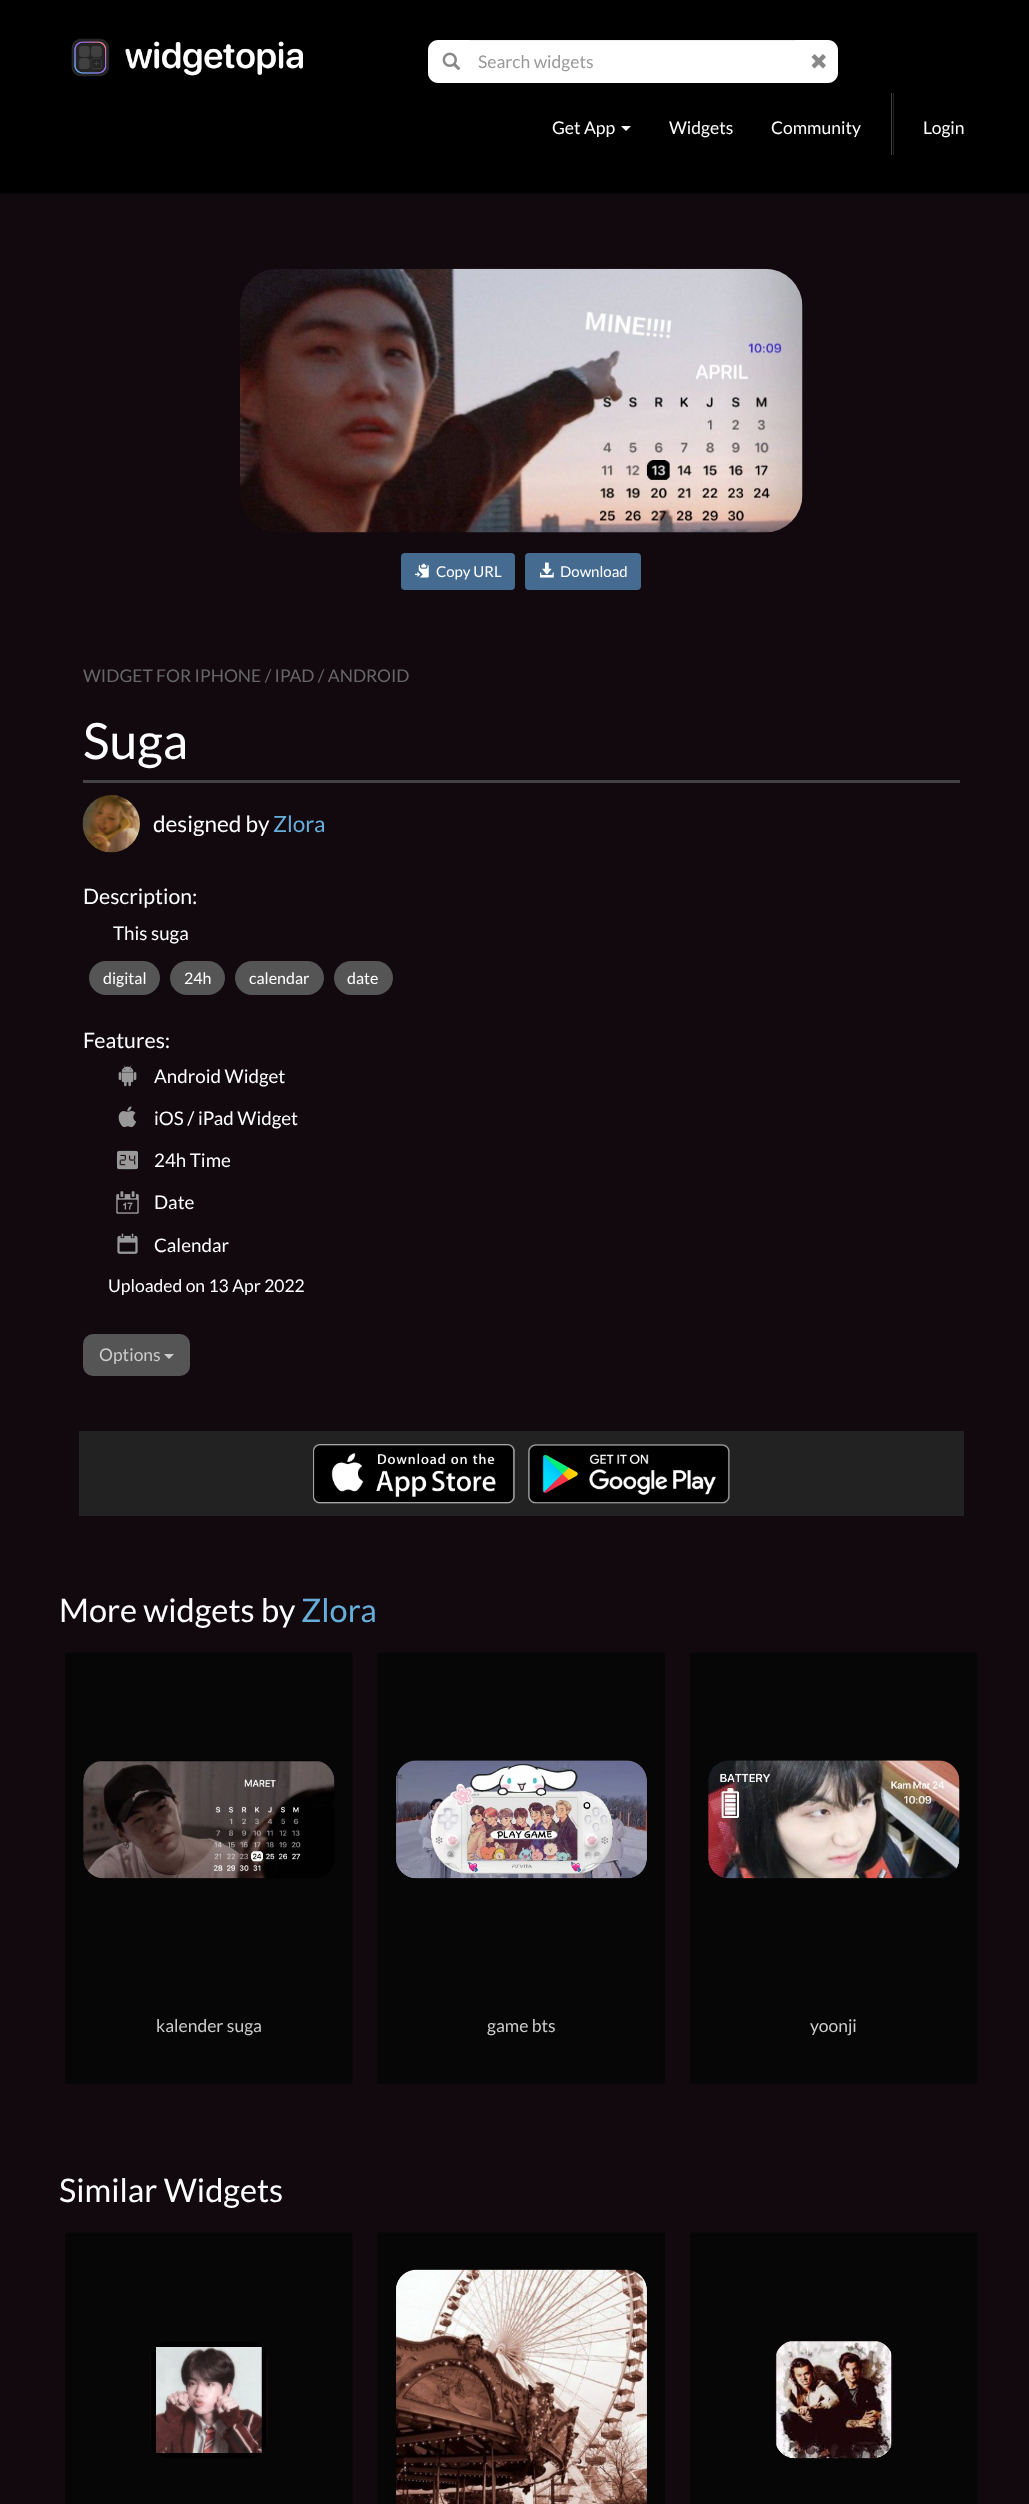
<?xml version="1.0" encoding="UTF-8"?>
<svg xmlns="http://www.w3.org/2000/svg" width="1029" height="2504">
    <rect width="100%" height="100%" fill="#12090F"/>
    <rect x="0" y="0" width="1029" height="193" fill="#000000"/>
    <rect x="0" y="193" width="1029" height="1" fill="#080808"/>
    <image x="71" y="38" width="232" height="39" href="img_01.png"/>
    <path d="M 438 40 H 470 V 83 H 438 C 432.5 83 428 78.5 428 73 V 50 C 428 44.5 432.5 40 438 40 Z" fill="#FFFFFF"/>
    <image x="442" y="52" width="19" height="18" href="img_02.png"/>
    <rect x="470" y="41" width="325" height="42" fill="#FFFFFF"/>
    <rect x="470" y="40" width="325" height="1" fill="#ECECEC"/>
    <text x="478" y="68" font-family="Lato" font-size="17.5" fill="#999999">Search widgets</text>
    <path d="M 795 40 H 828 C 833.5 40 838 44.5 838 50 V 73 C 838 78.5 833.5 83 828 83 H 795 Z" fill="#FFFFFF"/>
    <image x="811" y="54" width="15" height="15" href="img_03.png"/>
    <text x="552" y="134" font-family="Lato" font-size="17.5" fill="#FFFFFF">Get App</text>
    <path d="M 621 126 H 631 L 626 131 Z" fill="#FFFFFF"/>
    <text x="669" y="134" font-family="Lato" font-size="17.5" fill="#FFFFFF">Widgets</text>
    <text x="771" y="134" font-family="Lato" font-size="17.5" fill="#FFFFFF">Community</text>
    <rect x="893" y="93" width="1" height="62" fill="#222222"/>
    <rect x="891" y="93" width="1" height="62" fill="#444444"/>
    <text x="923" y="134" font-family="Lato" font-size="17.5" fill="#FFFFFF">Login</text>
    <image x="240" y="268" width="563" height="265" href="img_04.png"/>
    <rect x="401" y="553" width="114" height="37" rx="4" fill="#456B90"/>
    <image x="415" y="563" width="14" height="15" href="img_05.png"/>
    <text x="436" y="577" font-family="Lato" font-size="15" fill="#FFFFFF">Copy URL</text>
    <rect x="525" y="553" width="116" height="37" rx="4" fill="#456B90"/>
    <image x="540" y="562" width="14" height="16" href="img_06.png"/>
    <text x="560" y="577" font-family="Lato" font-size="15" fill="#FFFFFF">Download</text>
    <text x="83" y="682" font-family="Lato" font-size="17.5" fill="#666666">WIDGET FOR IPHONE / IPAD / ANDROID</text>
    <text x="83" y="759" font-family="Lato" font-size="50" fill="#FFFFFF">Suga</text>
    <rect x="83" y="780" width="877" height="3" fill="#444444"/>
    <image x="82" y="795" width="58" height="58" href="img_07.png"/>
    <text x="153" y="832" font-family="Lato" font-size="22.5" fill="#FFFFFF">designed by</text>
    <text x="273" y="832" font-family="Lato" font-size="22.5" fill="#66AEDA">Zlora</text>
    <text x="83" y="904" font-family="Lato" font-size="21.25" fill="#FFFFFF">Description:</text>
    <text x="113" y="940" font-family="Lato" font-size="18.75" fill="#FFFFFF">This suga</text>
    <rect x="89" y="961" width="71" height="34" rx="17" fill="#555555"/>
    <text x="103" y="984" font-family="Lato" font-size="16" fill="#FFFFFF">digital</text>
    <rect x="170" y="961" width="55" height="34" rx="17" fill="#555555"/>
    <text x="184" y="984" font-family="Lato" font-size="16" fill="#FFFFFF">24h</text>
    <rect x="235" y="961" width="89" height="34" rx="17" fill="#555555"/>
    <text x="249" y="984" font-family="Lato" font-size="16" fill="#FFFFFF">calendar</text>
    <rect x="334" y="961" width="59" height="34" rx="17" fill="#555555"/>
    <text x="347" y="984" font-family="Lato" font-size="16" fill="#FFFFFF">date</text>
    <text x="83" y="1048" font-family="Lato" font-size="21.25" fill="#FFFFFF">Features:</text>
    <image x="118" y="1065" width="19" height="22" href="img_08.png"/>
    <text x="154" y="1083" font-family="Lato" font-size="18.75" fill="#FFFFFF">Android Widget</text>
    <image x="118" y="1106" width="19" height="22" href="img_09.png"/>
    <text x="154" y="1125" font-family="Lato" font-size="18.75" fill="#FFFFFF">iOS / iPad Widget</text>
    <image x="116" y="1150" width="23" height="20" href="img_10.png"/>
    <text x="154" y="1167" font-family="Lato" font-size="18.75" fill="#FFFFFF">24h Time</text>
    <image x="116" y="1191" width="23" height="23" href="img_11.png"/>
    <text x="154" y="1209" font-family="Lato" font-size="18.75" fill="#FFFFFF">Date</text>
    <image x="117" y="1233" width="21" height="21" href="img_12.png"/>
    <text x="154" y="1252" font-family="Lato" font-size="18.75" fill="#FFFFFF">Calendar</text>
    <text x="108" y="1292" font-family="Lato" font-size="17.5" fill="#FFFFFF">Uploaded on 13 Apr 2022</text>
    <rect x="83" y="1334" width="107" height="42" rx="10" fill="#555555"/>
    <text x="99" y="1361" font-family="Lato" font-size="17.5" fill="#CCCCCC">Options</text>
    <path d="M 164 1354 H 174 L 169 1359 Z" fill="#CCCCCC"/>
    <rect x="79" y="1431" width="885" height="85" fill="#222222"/>
    <image x="313" y="1444" width="202" height="60" href="img_13.png"/>
    <image x="528" y="1444" width="202" height="60" href="img_14.png"/>
    <text x="59" y="1622" font-family="Lato" font-size="32.5" fill="#FFFFFF">More widgets by</text>
    <text x="301" y="1622" font-family="Lato" font-size="32.5" fill="#66AEDA">Zlora</text>
    <image x="83" y="1760" width="252" height="119" href="img_16.png"/>
    <image x="65" y="1652" width="288" height="432" href="img_15.png"/>
    <text x="156" y="2032" font-family="Lato" font-size="17.5" fill="#CCCCCC">kalender suga</text>
    <image x="396" y="1760" width="251" height="119" href="img_18.png"/>
    <image x="377" y="1652" width="288" height="432" href="img_17.png"/>
    <text x="487" y="2032" font-family="Lato" font-size="17.5" fill="#CCCCCC">game bts</text>
    <image x="708" y="1760" width="252" height="119" href="img_20.png"/>
    <image x="690" y="1652" width="288" height="432" href="img_19.png"/>
    <text x="810" y="2032" font-family="Lato" font-size="17.5" fill="#CCCCCC">yoonji</text>
    <text x="59" y="2202" font-family="Lato" font-size="32.5" fill="#FFFFFF">Similar Widgets</text>
    <image x="151" y="2341" width="116" height="118" href="img_22.png"/>
    <image x="65" y="2232" width="288" height="272" href="img_21.png"/>
    <image x="396" y="2269" width="251" height="235" href="img_24.png"/>
    <image x="377" y="2232" width="288" height="272" href="img_23.png"/>
    <image x="776" y="2341" width="116" height="118" href="img_26.png"/>
    <image x="690" y="2232" width="288" height="272" href="img_25.png"/>
</svg>
